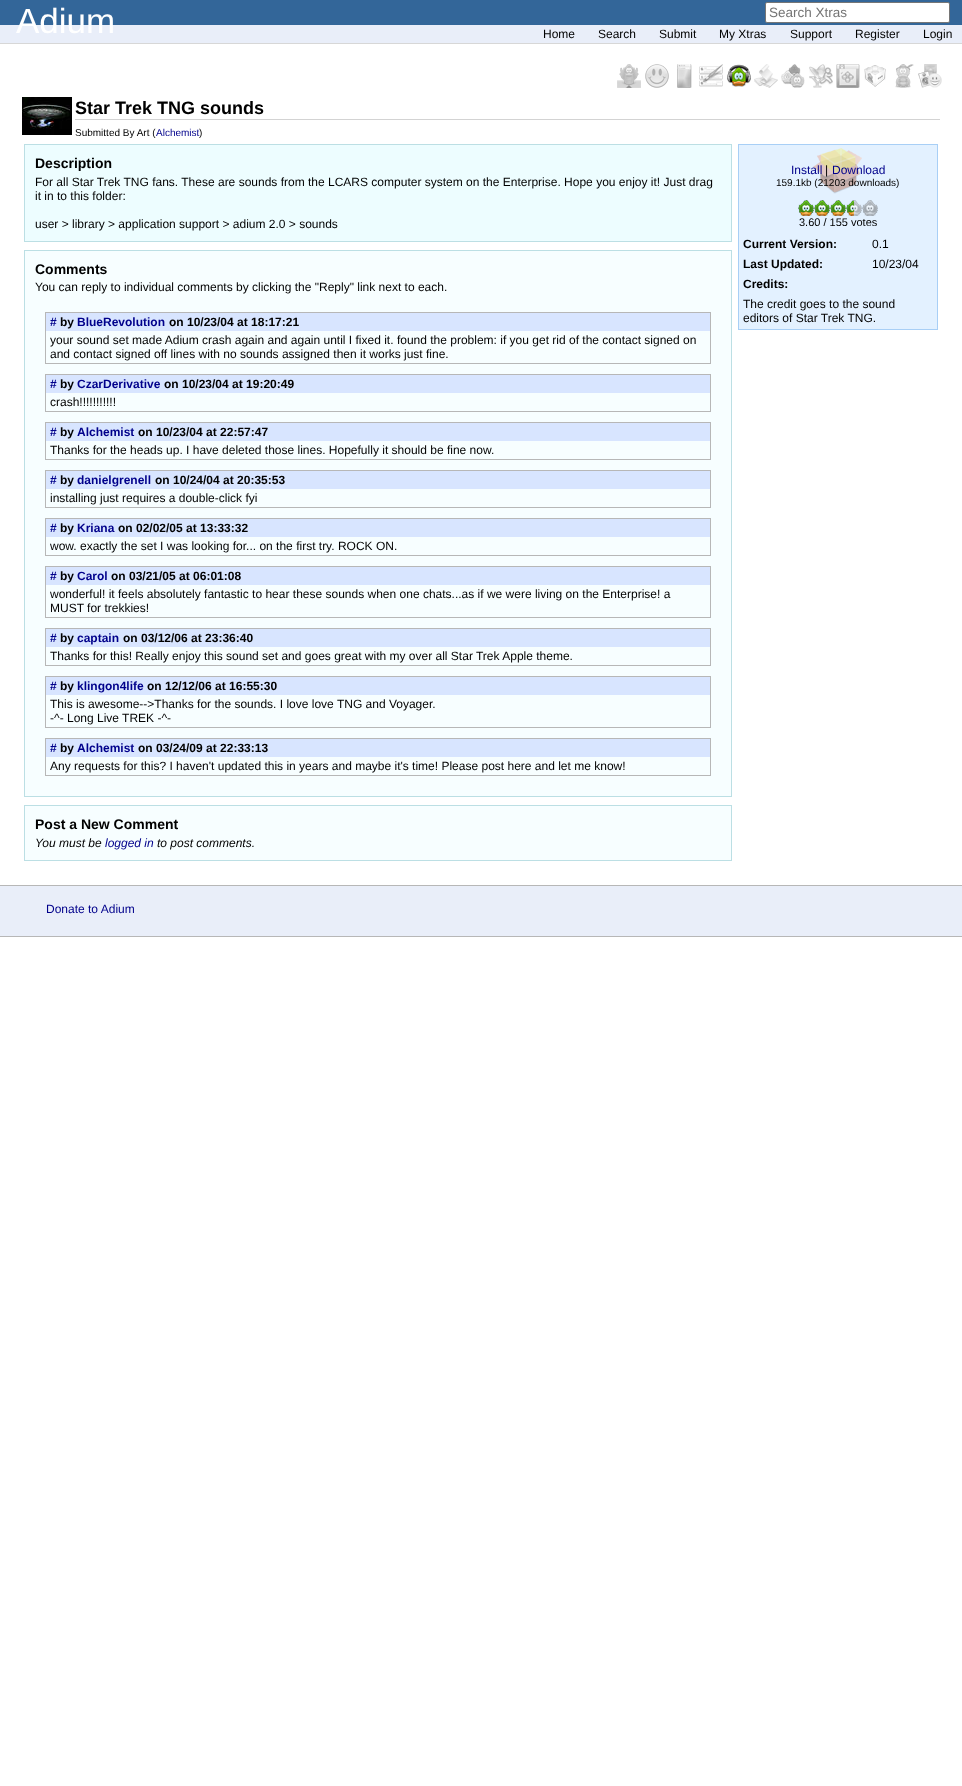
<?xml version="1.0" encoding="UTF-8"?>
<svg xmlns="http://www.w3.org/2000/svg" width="962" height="1786">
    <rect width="100%" height="100%" fill="#FFFFFF"/>
    <rect x="0" y="0" width="962" height="25" fill="#336699"/>
    <rect x="0" y="25" width="962" height="18" fill="#E9EEF9"/>
    <text x="16" y="33" font-family="Liberation Sans" font-size="35" fill="#FFFFFF">Adium</text>
    <rect x="765.5" y="2.5" width="184" height="20" rx="1.5" fill="#FFFFFF" stroke="#767676"/>
    <text x="769" y="17" font-family="Liberation Sans" font-size="13.5" fill="#757575">Search Xtras</text>
    <rect x="0" y="43" width="962" height="1" fill="#D7D7D7"/>
    <text x="543" y="38" font-family="Liberation Sans" font-size="12" fill="#000000">Home</text>
    <text x="598" y="38" font-family="Liberation Sans" font-size="12" fill="#000000">Search</text>
    <text x="659" y="38" font-family="Liberation Sans" font-size="12" fill="#000000">Submit</text>
    <text x="719" y="38" font-family="Liberation Sans" font-size="12" fill="#000000">My Xtras</text>
    <text x="790" y="38" font-family="Liberation Sans" font-size="12" fill="#000000">Support</text>
    <text x="855" y="38" font-family="Liberation Sans" font-size="12" fill="#000000">Register</text>
    <text x="923" y="38" font-family="Liberation Sans" font-size="12" fill="#000000">Login</text>
    <image x="617" y="64" width="24" height="24" href="img_01.png"/>
    <image x="645" y="64" width="24" height="24" href="img_02.png"/>
    <image x="677" y="64" width="15" height="24" href="img_03.png"/>
    <image x="699" y="64" width="24" height="23" href="img_04.png"/>
    <image x="727" y="64" width="24" height="23" href="img_05.png"/>
    <image x="754" y="64" width="24" height="24" href="img_06.png"/>
    <image x="781" y="64" width="24" height="24" href="img_07.png"/>
    <image x="809" y="64" width="24" height="24" href="img_08.png"/>
    <image x="836" y="64" width="24" height="24" href="img_09.png"/>
    <image x="864" y="65" width="22" height="22" href="img_10.png"/>
    <image x="895" y="64" width="19" height="24" href="img_11.png"/>
    <image x="918" y="64" width="24" height="24" href="img_12.png"/>
    <image x="22" y="97" width="50" height="38" href="img_13.png"/>
    <rect x="75" y="119" width="865" height="1" fill="#D3D3D3"/>
    <text x="75" y="114" font-family="Liberation Sans" font-size="18" font-weight="700" fill="#000000">Star Trek TNG sounds</text>
    <text x="75" y="136" font-family="Liberation Sans" font-size="10" fill="#000000">Submitted By Art (</text>
    <text x="156" y="136" font-family="Liberation Sans" font-size="10" fill="#00008B">Alchemist</text>
    <text x="199" y="136" font-family="Liberation Sans" font-size="10" fill="#000000">)</text>
    <rect x="24.5" y="144.5" width="707" height="97" fill="#EDFDFF" stroke="#BCDFE4"/>
    <text x="35" y="168" font-family="Liberation Sans" font-size="14" font-weight="700" fill="#000000">Description</text>
    <text font-family="Liberation Sans" font-size="12" fill="#000000">
        <tspan x="35" y="186">For all Star Trek TNG fans. These are sounds from the LCARS computer system on the Enterprise. Hope you enjoy it! Just drag</tspan>
        <tspan x="35" y="200">it in to this folder:</tspan>
    </text>
    <text x="35" y="228" font-family="Liberation Sans" font-size="12" fill="#000000">user &gt; library &gt; application support &gt; adium 2.0 &gt; sounds</text>
    <rect x="24.5" y="250.5" width="707" height="546" fill="#F7FEFF" stroke="#BCDFE4"/>
    <text x="35" y="274" font-family="Liberation Sans" font-size="14" font-weight="700" fill="#000000">Comments</text>
    <text x="35" y="291" font-family="Liberation Sans" font-size="12" fill="#000000">You can reply to individual comments by clicking the "Reply" link next to each.</text>
    <rect x="45.5" y="312.5" width="665" height="51" fill="none" stroke="#B7B7B7"/>
    <rect x="46" y="313" width="664" height="18" fill="#D8E5FF"/>
    <text x="50" y="326" font-family="Liberation Sans" font-size="12" font-weight="700" fill="#00008B">#</text>
    <text x="60" y="326" font-family="Liberation Sans" font-size="12" font-weight="700" fill="#000000">by</text>
    <text x="77" y="326" font-family="Liberation Sans" font-size="12" font-weight="700" fill="#00008B">BlueRevolution</text>
    <text x="169" y="326" font-family="Liberation Sans" font-size="12" font-weight="700" fill="#000000">on 10/23/04 at 18:17:21</text>
    <text font-family="Liberation Sans" font-size="12" fill="#000000">
        <tspan x="50" y="344">your sound set made Adium crash again and again until I fixed it. found the problem: if you get rid of the contact signed on</tspan>
        <tspan x="50" y="358">and contact signed off lines with no sounds assigned then it works just fine.</tspan>
    </text>
    <rect x="45.5" y="374.5" width="665" height="37" fill="none" stroke="#B7B7B7"/>
    <rect x="46" y="375" width="664" height="18" fill="#D8E5FF"/>
    <text x="50" y="388" font-family="Liberation Sans" font-size="12" font-weight="700" fill="#00008B">#</text>
    <text x="60" y="388" font-family="Liberation Sans" font-size="12" font-weight="700" fill="#000000">by</text>
    <text x="77" y="388" font-family="Liberation Sans" font-size="12" font-weight="700" fill="#00008B">CzarDerivative</text>
    <text x="164" y="388" font-family="Liberation Sans" font-size="12" font-weight="700" fill="#000000">on 10/23/04 at 19:20:49</text>
    <text x="50" y="406" font-family="Liberation Sans" font-size="12" fill="#000000">crash!!!!!!!!!!!</text>
    <rect x="45.5" y="422.5" width="665" height="37" fill="none" stroke="#B7B7B7"/>
    <rect x="46" y="423" width="664" height="18" fill="#D8E5FF"/>
    <text x="50" y="436" font-family="Liberation Sans" font-size="12" font-weight="700" fill="#00008B">#</text>
    <text x="60" y="436" font-family="Liberation Sans" font-size="12" font-weight="700" fill="#000000">by</text>
    <text x="77" y="436" font-family="Liberation Sans" font-size="12" font-weight="700" fill="#00008B">Alchemist</text>
    <text x="138" y="436" font-family="Liberation Sans" font-size="12" font-weight="700" fill="#000000">on 10/23/04 at 22:57:47</text>
    <text x="50" y="454" font-family="Liberation Sans" font-size="12" fill="#000000">Thanks for the heads up. I have deleted those lines. Hopefully it should be fine now.</text>
    <rect x="45.5" y="470.5" width="665" height="37" fill="none" stroke="#B7B7B7"/>
    <rect x="46" y="471" width="664" height="18" fill="#D8E5FF"/>
    <text x="50" y="484" font-family="Liberation Sans" font-size="12" font-weight="700" fill="#00008B">#</text>
    <text x="60" y="484" font-family="Liberation Sans" font-size="12" font-weight="700" fill="#000000">by</text>
    <text x="77" y="484" font-family="Liberation Sans" font-size="12" font-weight="700" fill="#00008B">danielgrenell</text>
    <text x="155" y="484" font-family="Liberation Sans" font-size="12" font-weight="700" fill="#000000">on 10/24/04 at 20:35:53</text>
    <text x="50" y="502" font-family="Liberation Sans" font-size="12" fill="#000000">installing just requires a double-click fyi</text>
    <rect x="45.5" y="518.5" width="665" height="37" fill="none" stroke="#B7B7B7"/>
    <rect x="46" y="519" width="664" height="18" fill="#D8E5FF"/>
    <text x="50" y="532" font-family="Liberation Sans" font-size="12" font-weight="700" fill="#00008B">#</text>
    <text x="60" y="532" font-family="Liberation Sans" font-size="12" font-weight="700" fill="#000000">by</text>
    <text x="77" y="532" font-family="Liberation Sans" font-size="12" font-weight="700" fill="#00008B">Kriana</text>
    <text x="118" y="532" font-family="Liberation Sans" font-size="12" font-weight="700" fill="#000000">on 02/02/05 at 13:33:32</text>
    <text x="50" y="550" font-family="Liberation Sans" font-size="12" fill="#000000">wow. exactly the set I was looking for... on the first try. ROCK ON.</text>
    <rect x="45.5" y="566.5" width="665" height="51" fill="none" stroke="#B7B7B7"/>
    <rect x="46" y="567" width="664" height="18" fill="#D8E5FF"/>
    <text x="50" y="580" font-family="Liberation Sans" font-size="12" font-weight="700" fill="#00008B">#</text>
    <text x="60" y="580" font-family="Liberation Sans" font-size="12" font-weight="700" fill="#000000">by</text>
    <text x="77" y="580" font-family="Liberation Sans" font-size="12" font-weight="700" fill="#00008B">Carol</text>
    <text x="111" y="580" font-family="Liberation Sans" font-size="12" font-weight="700" fill="#000000">on 03/21/05 at 06:01:08</text>
    <text font-family="Liberation Sans" font-size="12" fill="#000000">
        <tspan x="50" y="598">wonderful! it feels absolutely fantastic to hear these sounds when one chats...as if we were living on the Enterprise! a</tspan>
        <tspan x="50" y="612">MUST for trekkies!</tspan>
    </text>
    <rect x="45.5" y="628.5" width="665" height="37" fill="none" stroke="#B7B7B7"/>
    <rect x="46" y="629" width="664" height="18" fill="#D8E5FF"/>
    <text x="50" y="642" font-family="Liberation Sans" font-size="12" font-weight="700" fill="#00008B">#</text>
    <text x="60" y="642" font-family="Liberation Sans" font-size="12" font-weight="700" fill="#000000">by</text>
    <text x="77" y="642" font-family="Liberation Sans" font-size="12" font-weight="700" fill="#00008B">captain</text>
    <text x="123" y="642" font-family="Liberation Sans" font-size="12" font-weight="700" fill="#000000">on 03/12/06 at 23:36:40</text>
    <text x="50" y="660" font-family="Liberation Sans" font-size="12" fill="#000000">Thanks for this! Really enjoy this sound set and goes great with my over all Star Trek Apple theme.</text>
    <rect x="45.5" y="676.5" width="665" height="51" fill="none" stroke="#B7B7B7"/>
    <rect x="46" y="677" width="664" height="18" fill="#D8E5FF"/>
    <text x="50" y="690" font-family="Liberation Sans" font-size="12" font-weight="700" fill="#00008B">#</text>
    <text x="60" y="690" font-family="Liberation Sans" font-size="12" font-weight="700" fill="#000000">by</text>
    <text x="77" y="690" font-family="Liberation Sans" font-size="12" font-weight="700" fill="#00008B">klingon4life</text>
    <text x="147" y="690" font-family="Liberation Sans" font-size="12" font-weight="700" fill="#000000">on 12/12/06 at 16:55:30</text>
    <text font-family="Liberation Sans" font-size="12" fill="#000000">
        <tspan x="50" y="708">This is awesome--&gt;Thanks for the sounds. I love love TNG and Voyager.</tspan>
        <tspan x="50" y="722">-^- Long Live TREK -^-</tspan>
    </text>
    <rect x="45.5" y="738.5" width="665" height="37" fill="none" stroke="#B7B7B7"/>
    <rect x="46" y="739" width="664" height="18" fill="#D8E5FF"/>
    <text x="50" y="752" font-family="Liberation Sans" font-size="12" font-weight="700" fill="#00008B">#</text>
    <text x="60" y="752" font-family="Liberation Sans" font-size="12" font-weight="700" fill="#000000">by</text>
    <text x="77" y="752" font-family="Liberation Sans" font-size="12" font-weight="700" fill="#00008B">Alchemist</text>
    <text x="138" y="752" font-family="Liberation Sans" font-size="12" font-weight="700" fill="#000000">on 03/24/09 at 22:33:13</text>
    <text x="50" y="770" font-family="Liberation Sans" font-size="12" fill="#000000">Any requests for this? I haven't updated this in years and maybe it's time! Please post here and let me know!</text>
    <rect x="24.5" y="805.5" width="707" height="55" fill="#F7FEFF" stroke="#BCDFE4"/>
    <text x="35" y="829" font-family="Liberation Sans" font-size="14" font-weight="700" fill="#000000">Post a New Comment</text>
    <text x="35" y="847" font-family="Liberation Sans" font-size="12" font-style="italic" fill="#000000">You must be</text>
    <text x="105" y="847" font-family="Liberation Sans" font-size="12" font-style="italic" fill="#00008B">logged in</text>
    <text x="157" y="847" font-family="Liberation Sans" font-size="12" font-style="italic" fill="#000000">to post comments.</text>
    <rect x="738.5" y="144.5" width="199" height="185" fill="#E3F1FF" stroke="#A8CFF6"/>
    <image x="813" y="148" width="49" height="46" href="img_14.png"/>
    <text x="791" y="174" font-family="Liberation Sans" font-size="12" fill="#00008B">Install</text>
    <text x="825" y="174" font-family="Liberation Sans" font-size="12" fill="#000000">|</text>
    <text x="832" y="174" font-family="Liberation Sans" font-size="12" fill="#00008B">Download</text>
    <text x="776" y="186" font-family="Liberation Sans" font-size="10" fill="#000000">159.1kb (21203 downloads)</text>
    <image x="798" y="200" width="16" height="16" href="img_15.png"/>
    <image x="814" y="200" width="16" height="16" href="img_15.png"/>
    <image x="830" y="200" width="16" height="16" href="img_15.png"/>
    <image x="846" y="200" width="16" height="16" href="img_16.png"/>
    <image x="862" y="200" width="16" height="16" href="img_17.png"/>
    <text x="799" y="226" font-family="Liberation Sans" font-size="11" fill="#000000">3.60 / 155 votes</text>
    <text x="743" y="248" font-family="Liberation Sans" font-size="12" font-weight="700" fill="#000000">Current Version:</text>
    <text x="872" y="248" font-family="Liberation Sans" font-size="12" fill="#000000">0.1</text>
    <text x="743" y="268" font-family="Liberation Sans" font-size="12" font-weight="700" fill="#000000">Last Updated:</text>
    <text x="872" y="268" font-family="Liberation Sans" font-size="12" fill="#000000">10/23/04</text>
    <text x="743" y="288" font-family="Liberation Sans" font-size="12" font-weight="700" fill="#000000">Credits:</text>
    <text font-family="Liberation Sans" font-size="12" fill="#000000">
        <tspan x="743" y="308">The credit goes to the sound</tspan>
        <tspan x="743" y="322">editors of Star Trek TNG.</tspan>
    </text>
    <rect x="0" y="886" width="962" height="50" fill="#E9EEF9"/>
    <rect x="0" y="885" width="962" height="1" fill="#B7B7B7"/>
    <rect x="0" y="936" width="962" height="1" fill="#B7B7B7"/>
    <text x="46" y="913" font-family="Liberation Sans" font-size="12" fill="#00008B">Donate to Adium</text>
</svg>
